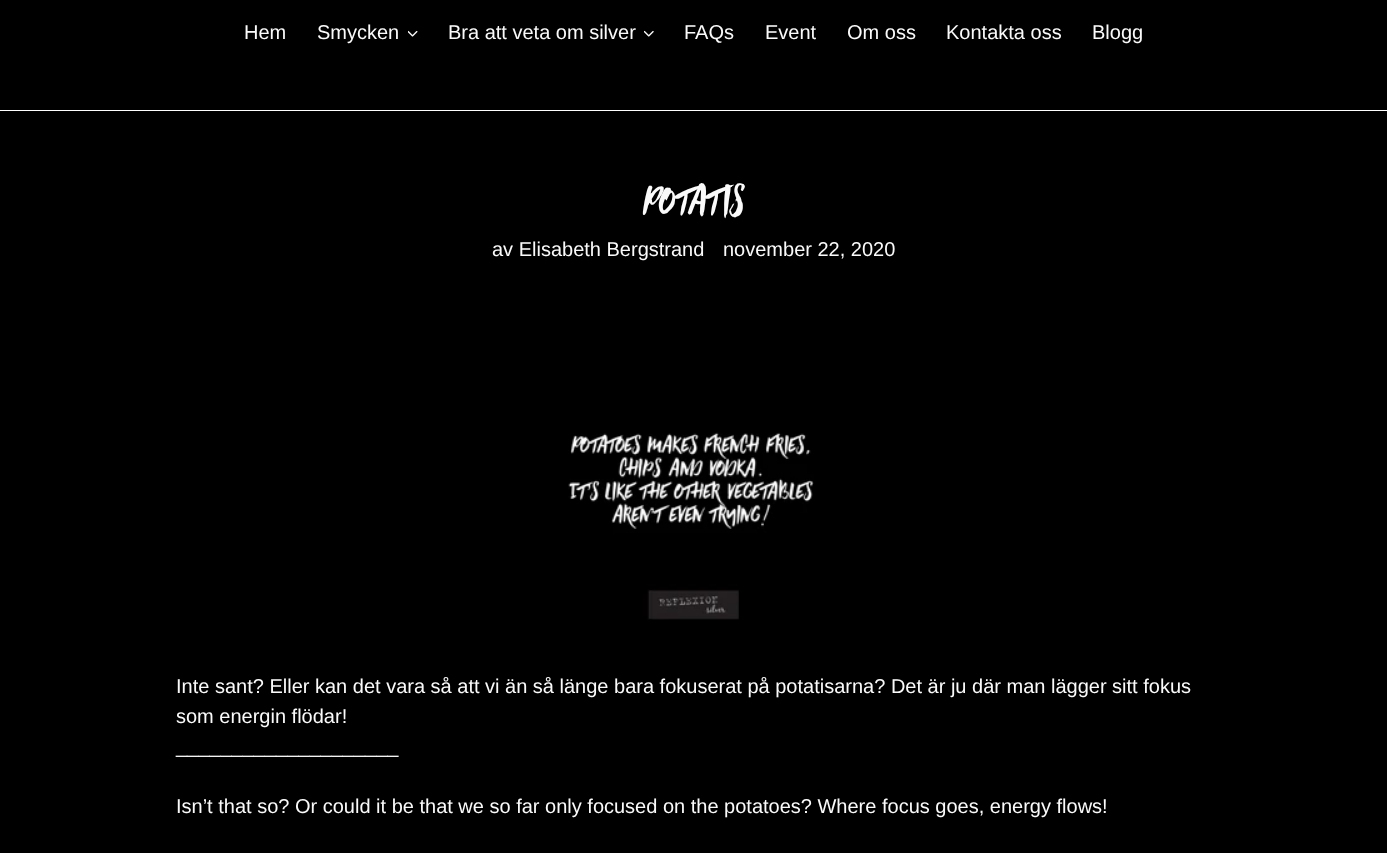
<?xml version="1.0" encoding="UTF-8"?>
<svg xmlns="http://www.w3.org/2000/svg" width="1387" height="853">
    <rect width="100%" height="100%" fill="#000000"/>
    <rect x="0" y="110" width="1387" height="1" fill="#FFFFFF"/>
    <text x="244" y="39" font-family="Liberation Sans" font-size="20" fill="#FAFAFA">Hem</text>
    <text x="317" y="39" font-family="Liberation Sans" font-size="20" fill="#FAFAFA">Smycken</text>
    <image x="408" y="30" width="10" height="7" href="img_01.png"/>
    <text x="448" y="39" font-family="Liberation Sans" font-size="20" fill="#FAFAFA">Bra att veta om silver</text>
    <image x="644" y="30" width="10" height="7" href="img_02.png"/>
    <text x="684" y="39" font-family="Liberation Sans" font-size="20" fill="#FAFAFA">FAQs</text>
    <text x="765" y="39" font-family="Liberation Sans" font-size="20" fill="#FAFAFA">Event</text>
    <text x="847" y="39" font-family="Liberation Sans" font-size="20" fill="#FAFAFA">Om oss</text>
    <text x="946" y="39" font-family="Liberation Sans" font-size="20" fill="#FAFAFA">Kontakta oss</text>
    <text x="1092" y="39" font-family="Liberation Sans" font-size="20" fill="#FAFAFA">Blogg</text>
    <text x="644" y="214" font-family="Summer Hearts" font-size="34" fill="#FAFAFA">Potatis</text>
    <text x="492" y="256" font-family="Liberation Sans" font-size="20" fill="#FAFAFA">av Elisabeth Bergstrand</text>
    <text x="723" y="256" font-family="Liberation Sans" font-size="20" fill="#FAFAFA">november 22, 2020</text>
    <image x="568" y="432" width="246" height="188" href="img_03.png"/>
    <text font-family="Liberation Sans" font-size="20" fill="#FAFAFA">
        <tspan x="176" y="693">Inte sant? Eller kan det vara så att vi än så länge bara fokuserat på potatisarna? Det är ju där man lägger sitt fokus</tspan>
        <tspan x="176" y="723">som energin flödar!</tspan>
        <tspan x="176" y="753">____________________</tspan>
    </text>
    <text x="176" y="813" font-family="Liberation Sans" font-size="20" fill="#FAFAFA">Isn’t that so? Or could it be that we so far only focused on the potatoes? Where focus goes, energy flows!</text>
</svg>
